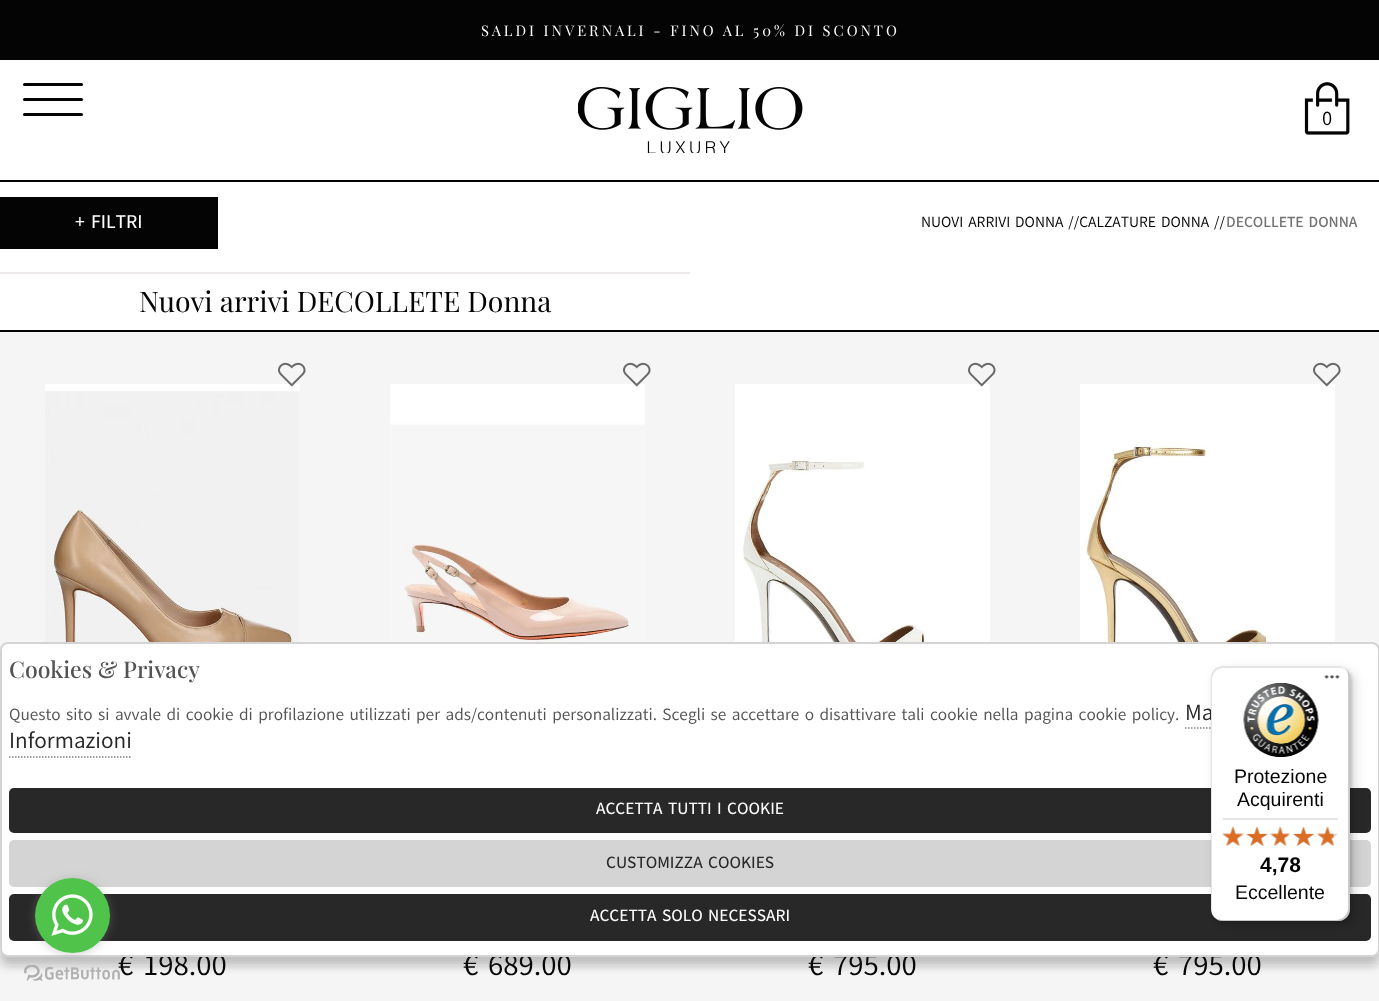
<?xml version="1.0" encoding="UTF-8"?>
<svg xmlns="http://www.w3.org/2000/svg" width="1379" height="1001">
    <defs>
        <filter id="blur1" x="-50%" y="-200%" width="200%" height="500%"><feGaussianBlur stdDeviation="4.5"/></filter>
        <filter id="blur2" x="-50%" y="-200%" width="200%" height="500%"><feGaussianBlur stdDeviation="6"/></filter>
        <filter id="blur3" x="-50%" y="-200%" width="200%" height="500%"><feGaussianBlur stdDeviation="1.5"/></filter>
        <filter id="blur4" x="-50%" y="-200%" width="200%" height="500%"><feGaussianBlur stdDeviation="5"/></filter>
    </defs>
    <rect width="100%" height="100%" fill="#FFFFFF"/>
    <rect x="0" y="0" width="1379" height="60" fill="#040404"/>
    <text x="481" y="36" font-family="Playfair Display" font-size="14.7" letter-spacing="3" fill="#FFFFFF">SALDI INVERNALI - FINO AL 50% DI SCONTO</text>
    <rect x="23" y="98" width="60" height="3" rx="1.5" fill="#040404"/>
    <rect x="23" y="83" width="60" height="3" rx="1.5" fill="#040404"/>
    <rect x="23" y="113" width="60" height="3" rx="1.5" fill="#040404"/>
    <image x="578" y="87" width="225" height="66" href="img_01.png"/>
    <image x="1304" y="82" width="46" height="53" href="img_02.png"/>
    <text x="1322" y="125" font-family="Akatab" font-size="20" fill="#040404">0</text>
    <rect x="0" y="332" width="1379" height="669" fill="#F5F5F5"/>
    <rect x="0" y="180" width="1379" height="2" fill="#040404"/>
    <rect x="0" y="330" width="1379" height="2" fill="#040404"/>
    <rect x="0" y="197" width="218" height="52" fill="#040404"/>
    <text x="75" y="228" font-family="Akatab" font-size="19" font-weight="500" fill="#FFFFFF">+ FILTRI</text>
    <text x="921" y="227" font-family="Akatab" font-size="15.1" fill="#040404">NUOVI ARRIVI DONNA //CALZATURE DONNA //</text>
    <text x="1226" y="227" font-family="Akatab" font-size="15.1" font-weight="600" fill="#727272">DECOLLETE DONNA</text>
    <rect x="0" y="272" width="690" height="2" fill="#EDE9E9"/>
    <text x="139" y="312" font-family="Playfair Display" font-size="28.4" fill="#040404">Nuovi arrivi DECOLLETE Donna</text>
    <image x="45" y="384" width="255" height="258" href="img_04.png"/>
    <image x="278" y="362" width="28" height="25" href="img_03.png"/>
    <text x="118" y="975" font-family="Akatab" font-size="30" fill="#040404">€ 198.00</text>
    <image x="390" y="384" width="255" height="258" href="img_05.png"/>
    <image x="623" y="362" width="28" height="25" href="img_03.png"/>
    <text x="463" y="975" font-family="Akatab" font-size="30" fill="#040404">€ 689.00</text>
    <image x="735" y="384" width="255" height="258" href="img_06.png"/>
    <image x="968" y="362" width="28" height="25" href="img_03.png"/>
    <text x="808" y="975" font-family="Akatab" font-size="30" fill="#040404">€ 795.00</text>
    <image x="1080" y="384" width="255" height="258" href="img_07.png"/>
    <image x="1313" y="362" width="28" height="25" href="img_03.png"/>
    <text x="1153" y="975" font-family="Akatab" font-size="30" fill="#040404">€ 795.00</text>
    <rect x="0" y="651" width="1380" height="315" rx="8" fill="#282828" fill-opacity="0.25" filter="url(#blur1)"/>
    <rect x="1" y="643" width="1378" height="313" rx="7" fill="#FFFFFF" stroke="#D4D4D4" stroke-width="2"/>
    <text x="9" y="678" font-family="Playfair Display" font-size="23" font-weight="500" fill="#535353">Cookies &amp; Privacy</text>
    <text x="9" y="720" font-family="Akatab" font-size="16.8" fill="#535353">Questo sito si avvale di cookie di profilazione utilizzati per ads/contenuti personalizzati. Scegli se accettare o disattivare tali cookie nella pagina cookie policy.</text>
    <text x="1185" y="720" font-family="Akatab" font-size="22.5" fill="#282828">Ma</text>
    <path d="M 1185 728 H 1269" fill="none" stroke="#808080" stroke-width="1.5" stroke-dasharray="1.5 1.5"/>
    <text x="9" y="748" font-family="Akatab" font-size="22.5" fill="#282828">Informazioni</text>
    <path d="M 9 757 H 132" fill="none" stroke="#808080" stroke-width="1.5" stroke-dasharray="1.5 1.5"/>
    <rect x="9" y="788" width="1362" height="45" rx="5" fill="#282828"/>
    <text x="596" y="814" font-family="Akatab" font-size="16.8" font-weight="500" fill="#FFFFFF">ACCETTA TUTTI I COOKIE</text>
    <rect x="9" y="840" width="1362" height="47" rx="5" fill="#D4D4D4"/>
    <text x="606" y="868" font-family="Akatab" font-size="16.8" font-weight="500" fill="#282828">CUSTOMIZZA COOKIES</text>
    <rect x="9" y="894" width="1362" height="47" rx="5" fill="#282828"/>
    <text x="590" y="921" font-family="Akatab" font-size="16.8" font-weight="500" fill="#FFFFFF">ACCETTA SOLO NECESSARI</text>
    <rect x="1215" y="671" width="140" height="255" rx="12" fill="#040404" fill-opacity="0.15" filter="url(#blur2)"/>
    <rect x="1212" y="668" width="140" height="255" rx="12" fill="#040404" fill-opacity="0.15" filter="url(#blur3)"/>
    <rect x="1211" y="666" width="139" height="255" rx="12" fill="#FFFFFF"/>
    <path d="M 1224 668 H 1340 C 1343 668 1345 669 1348 671 C 1345 668 1342 666 1338 666 H 1223 C 1216 666 1211 671 1211 678 V 909 C 1211 912 1212 915 1214 917 C 1213 915 1212 913 1212 910 V 680 C 1212 673 1217 668 1224 668 Z" fill="#040404" fill-opacity="0.1"/>
    <path d="M 1217 919 C 1218 920 1221 921 1223 921 H 1338 C 1345 921 1350 916 1350 909 V 678 C 1350 674 1348 671 1345 668 C 1347 671 1348 673 1348 676 V 908 C 1348 914 1343 920 1336 920 H 1221 Z" fill="#040404" fill-opacity="0.2"/>
    <path d="M 1215 918 C 1217 920 1220 921 1223 921 H 1338 C 1345 921 1350 916 1350 909 V 678 C 1350 675 1349 672 1347 670 C 1348 672 1349 674 1349 677 V 908 C 1349 915 1344 920 1337 920 H 1222 C 1219 920 1217 919 1215 918 Z" fill="#353535" fill-opacity="0.2"/>
    <path d="M 1215 918 C 1217 920 1220 921 1223 921 H 1338 C 1345 921 1350 916 1350 909 V 678 C 1350 674 1348 671 1346 669 C 1348 671 1349 674 1349 677 V 908 C 1349 915 1344 920 1337 920 H 1222 C 1219 920 1217 919 1215 918 Z" fill="#FFFFFF" fill-opacity="0.3"/>
    <image x="1324" y="675" width="16" height="4" href="img_08.png"/>
    <image x="1243" y="683" width="76" height="74" href="img_09.png"/>
    <text x="1234" y="783" font-family="Liberation Sans" font-size="19.5" fill="#040404">Protezione</text>
    <text x="1237" y="806" font-family="Liberation Sans" font-size="19.5" fill="#040404">Acquirenti</text>
    <rect x="1223" y="818" width="115" height="2" fill="#E5E5E5"/>
    <image x="1222" y="826" width="22" height="20" href="img_10.png"/>
    <image x="1247" y="826" width="20" height="20" href="img_11.png"/>
    <image x="1270" y="826" width="20" height="20" href="img_12.png"/>
    <image x="1293" y="826" width="21" height="20" href="img_13.png"/>
    <image x="1317" y="826" width="21" height="20" href="img_14.png"/>
    <image x="1222" y="826" width="22" height="20" href="img_15.png"/>
    <image x="1246" y="827" width="22" height="19" href="img_16.png"/>
    <image x="1270" y="826" width="20" height="20" href="img_17.png"/>
    <image x="1293" y="827" width="21" height="19" href="img_18.png"/>
    <image x="1317" y="826" width="17" height="20" href="img_19.png"/>
    <text x="1260" y="872" font-family="Liberation Sans" font-size="21" font-weight="700" fill="#040404">4,78</text>
    <text x="1235" y="899" font-family="Liberation Sans" font-size="19.5" fill="#040404">Eccellente</text>
    <image x="24" y="965" width="96" height="16" href="img_21.png"/>
    <rect x="35" y="879" width="75" height="75" rx="37.5" fill="#8A8A8A" fill-opacity="0.4" filter="url(#blur4)"/>
    <circle cx="72.5" cy="915.5" r="37.5" fill="#50C34A"/>
    <image x="51" y="894" width="42" height="42" href="img_20.png"/>
</svg>
